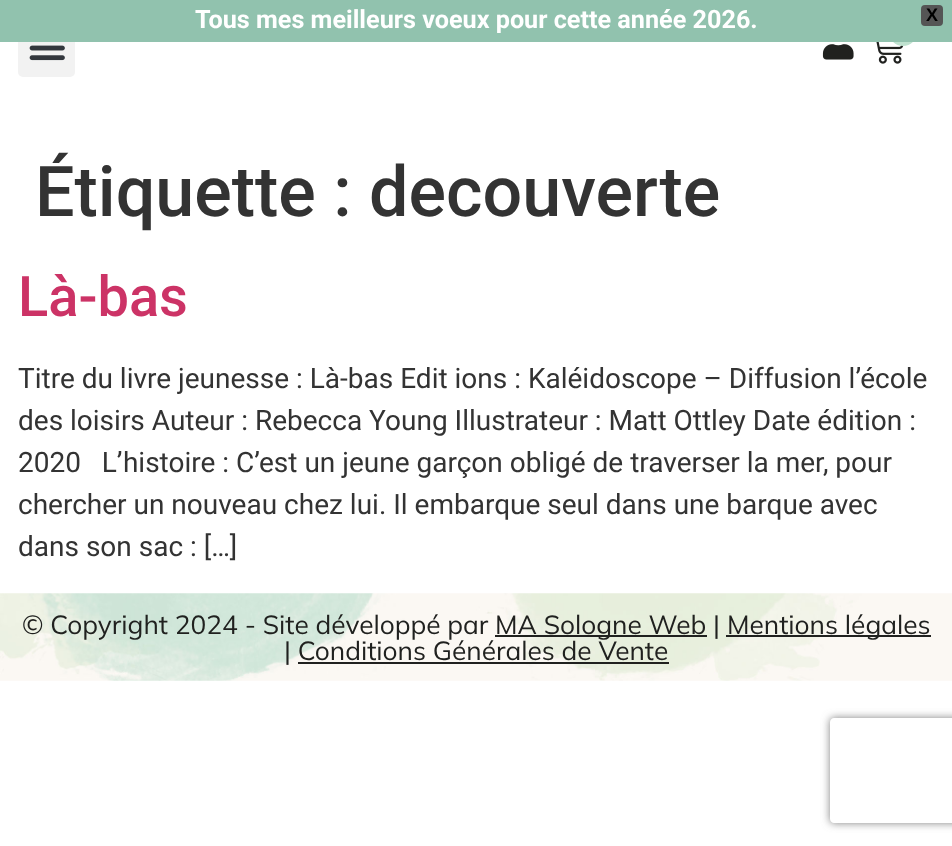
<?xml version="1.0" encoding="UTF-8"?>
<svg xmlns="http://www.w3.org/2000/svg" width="952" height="846">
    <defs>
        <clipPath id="clip1"><path d="M 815 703 H 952 V 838 H 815 Z M 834 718 H 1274 C 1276 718 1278 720 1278 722 V 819 C 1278 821 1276 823 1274 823 H 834 C 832 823 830 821 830 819 V 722 C 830 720 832 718 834 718 Z" clip-rule="evenodd"/></clipPath>
        <filter id="blur1" x="-50%" y="-200%" width="200%" height="500%"><feGaussianBlur stdDeviation="4.5"/></filter>
    </defs>
    <rect width="100%" height="100%" fill="#FFFFFF"/>
    <rect x="18" y="19" width="57" height="58" rx="5" fill="#F2F2F2"/>
    <image x="876" y="42" width="28" height="22" href="img_03.png"/>
    <circle cx="903" cy="32" r="14" fill="#BFE1CF"/>
    <rect x="0" y="0" width="952" height="42" fill="#91C2AE"/>
    <text x="195" y="28" font-family="Roboto" font-size="25.2" font-weight="700" fill="#FFFFFF">Tous mes meilleurs voeux pour cette année 2026.</text>
    <rect x="922" y="6" width="20" height="19" rx="3" fill="#555555" stroke="#555555" stroke-width="2"/>
    <text x="926" y="21" font-family="Liberation Sans" font-size="18" font-weight="700" fill="#000000">X</text>
    <image x="29" y="45" width="36" height="16" href="img_01.png"/>
    <image x="822" y="44" width="32" height="16" href="img_02.png"/>
    <text x="35" y="216" font-family="Roboto" font-size="70" font-weight="500" fill="#333333">Étiquette : decouverte</text>
    <text x="18" y="316" font-family="Roboto" font-size="56" font-weight="500" fill="#CC3366">Là-bas</text>
    <text font-family="Roboto" font-size="28" fill="#333333" xml:space="preserve"><tspan x="18" y="388">Titre du livre jeunesse : Là-bas Edit ions : Kaléidoscope – Diffusion l’école</tspan><tspan x="18" y="430">des loisirs Auteur : Rebecca Young Illustrateur : Matt Ottley Date édition :</tspan><tspan x="18" y="472">2020   L’histoire : C’est un jeune garçon obligé de traverser la mer, pour</tspan><tspan x="18" y="514">chercher un nouveau chez lui. Il embarque seul dans une barque avec</tspan><tspan x="18" y="556">dans son sac : […]</tspan></text>
    <image x="0" y="593" width="952" height="88" href="img_04.png"/>
    <text x="22" y="634" font-family="Mulish" font-size="26.25" fill="#20211F">© Copyright 2024 - Site développé par</text>
    <rect x="495" y="635" width="212" height="2" fill="#20211F"/>
    <text x="495" y="634" font-family="Mulish" font-size="26.25" fill="#20211F">MA Sologne Web |</text>
    <rect x="726" y="635" width="205" height="2" fill="#20211F"/>
    <text x="727" y="634" font-family="Mulish" font-size="26.25" fill="#20211F">Mentions légales</text>
    <text x="284" y="660" font-family="Mulish" font-size="26.25" fill="#20211F">| Conditions Générales de Vente</text>
    <rect x="298" y="662" width="371" height="2" fill="#20211F"/>
    <g clip-path="url(#clip1)">
        <rect x="830" y="718" width="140" height="105" rx="4" fill="#808080" filter="url(#blur1)"/>
    </g>
</svg>
